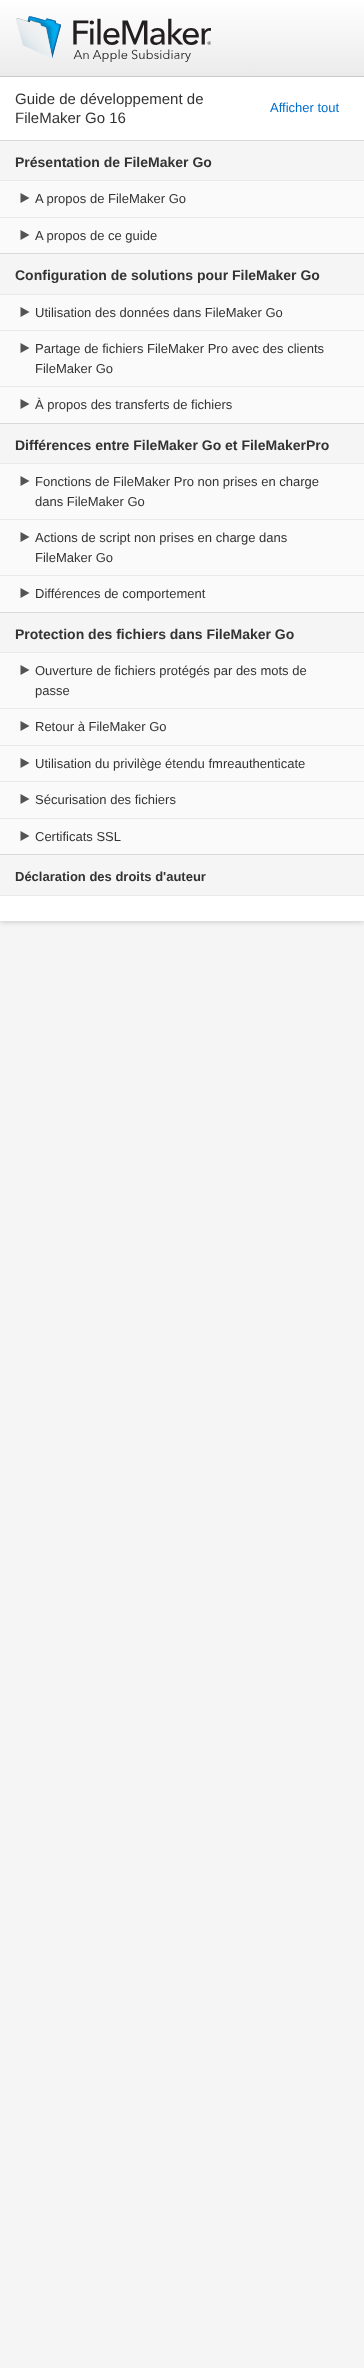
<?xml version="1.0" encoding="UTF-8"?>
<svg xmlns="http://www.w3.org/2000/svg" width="364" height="2368">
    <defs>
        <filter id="blur1" x="-50%" y="-200%" width="200%" height="500%"><feGaussianBlur stdDeviation="3"/></filter>
        <linearGradient id="g1" gradientUnits="userSpaceOnUse" x1="182" y1="0" x2="182" y2="76"><stop offset="0" stop-color="#FFFFFF"/><stop offset="1" stop-color="#EBEBEB"/></linearGradient>
    </defs>
    <rect width="100%" height="100%" fill="#F5F5F5"/>
    <rect x="0" y="0" width="364" height="921" fill="#BBBBBB" filter="url(#blur1)"/>
    <rect x="0" y="77" width="364" height="844" fill="#FFFFFF"/>
    <rect x="0" y="0" width="364" height="76" fill="url(#g1)"/>
    <rect x="0" y="76" width="364" height="1" fill="#C9C9C9"/>
    <image x="16" y="16" width="195" height="46" href="img_01.png"/>
    <text font-family="Liberation Sans" font-size="15" fill="#333333">
        <tspan x="15" y="104">Guide de développement de</tspan>
        <tspan x="15" y="123">FileMaker Go 16</tspan>
    </text>
    <text x="270" y="112" font-family="Liberation Sans" font-size="13" fill="#006ECE">Afficher tout</text>
    <rect x="0" y="141" width="364" height="39" fill="#F5F5F5"/>
    <rect x="0" y="140" width="364" height="1" fill="#D9D9D9"/>
    <text x="15" y="167" font-family="Liberation Sans" font-size="14" font-weight="700" fill="#333333">Présentation de FileMaker Go</text>
    <rect x="0" y="181" width="364" height="36" fill="#FAFAFA"/>
    <path d="M 20.5 193 L 29.5 198 L 20.5 203 Z" fill="#535353"/>
    <rect x="0" y="180" width="364" height="1" fill="#E9E9E9"/>
    <text x="35" y="203" font-family="Liberation Sans" font-size="13" fill="#333333">A propos de FileMaker Go</text>
    <rect x="0" y="218" width="364" height="35" fill="#FAFAFA"/>
    <path d="M 20.5 230 L 29.5 235 L 20.5 240 Z" fill="#535353"/>
    <rect x="0" y="217" width="364" height="1" fill="#E9E9E9"/>
    <text x="35" y="240" font-family="Liberation Sans" font-size="13" fill="#333333">A propos de ce guide</text>
    <rect x="0" y="254" width="364" height="40" fill="#F5F5F5"/>
    <rect x="0" y="253" width="364" height="1" fill="#D9D9D9"/>
    <text x="15" y="280" font-family="Liberation Sans" font-size="14" font-weight="700" fill="#333333">Configuration de solutions pour FileMaker Go</text>
    <rect x="0" y="295" width="364" height="35" fill="#FAFAFA"/>
    <path d="M 20.5 307 L 29.5 312 L 20.5 317 Z" fill="#535353"/>
    <rect x="0" y="294" width="364" height="1" fill="#E9E9E9"/>
    <text x="35" y="317" font-family="Liberation Sans" font-size="13" fill="#333333">Utilisation des données dans FileMaker Go</text>
    <rect x="0" y="331" width="364" height="55" fill="#FAFAFA"/>
    <path d="M 20.5 343 L 29.5 348 L 20.5 353 Z" fill="#535353"/>
    <rect x="0" y="330" width="364" height="1" fill="#E9E9E9"/>
    <text font-family="Liberation Sans" font-size="13" fill="#333333">
        <tspan x="35" y="353">Partage de fichiers FileMaker Pro avec des clients</tspan>
        <tspan x="35" y="373">FileMaker Go</tspan>
    </text>
    <rect x="0" y="387" width="364" height="36" fill="#FAFAFA"/>
    <path d="M 20.5 399 L 29.5 404 L 20.5 409 Z" fill="#535353"/>
    <rect x="0" y="386" width="364" height="1" fill="#E9E9E9"/>
    <text x="35" y="409" font-family="Liberation Sans" font-size="13" fill="#333333">À propos des transferts de fichiers</text>
    <rect x="0" y="424" width="364" height="39" fill="#F5F5F5"/>
    <rect x="0" y="423" width="364" height="1" fill="#D9D9D9"/>
    <text x="15" y="450" font-family="Liberation Sans" font-size="14" font-weight="700" fill="#333333">Différences entre FileMaker Go et FileMakerPro</text>
    <rect x="0" y="464" width="364" height="55" fill="#FAFAFA"/>
    <path d="M 20.5 476 L 29.5 481 L 20.5 486 Z" fill="#535353"/>
    <rect x="0" y="463" width="364" height="1" fill="#E9E9E9"/>
    <text font-family="Liberation Sans" font-size="13" fill="#333333">
        <tspan x="35" y="486">Fonctions de FileMaker Pro non prises en charge</tspan>
        <tspan x="35" y="506">dans FileMaker Go</tspan>
    </text>
    <rect x="0" y="520" width="364" height="55" fill="#FAFAFA"/>
    <path d="M 20.5 532 L 29.5 537 L 20.5 542 Z" fill="#535353"/>
    <rect x="0" y="519" width="364" height="1" fill="#E9E9E9"/>
    <text font-family="Liberation Sans" font-size="13" fill="#333333">
        <tspan x="35" y="542">Actions de script non prises en charge dans</tspan>
        <tspan x="35" y="562">FileMaker Go</tspan>
    </text>
    <rect x="0" y="576" width="364" height="36" fill="#FAFAFA"/>
    <path d="M 20.5 588 L 29.5 593 L 20.5 598 Z" fill="#535353"/>
    <rect x="0" y="575" width="364" height="1" fill="#E9E9E9"/>
    <text x="35" y="598" font-family="Liberation Sans" font-size="13" fill="#333333">Différences de comportement</text>
    <rect x="0" y="613" width="364" height="39" fill="#F5F5F5"/>
    <rect x="0" y="612" width="364" height="1" fill="#D9D9D9"/>
    <text x="15" y="639" font-family="Liberation Sans" font-size="14" font-weight="700" fill="#333333">Protection des fichiers dans FileMaker Go</text>
    <rect x="0" y="653" width="364" height="55" fill="#FAFAFA"/>
    <path d="M 20.5 665 L 29.5 670 L 20.5 675 Z" fill="#535353"/>
    <rect x="0" y="652" width="364" height="1" fill="#E9E9E9"/>
    <text font-family="Liberation Sans" font-size="13" fill="#333333">
        <tspan x="35" y="675">Ouverture de fichiers protégés par des mots de</tspan>
        <tspan x="35" y="695">passe</tspan>
    </text>
    <rect x="0" y="709" width="364" height="36" fill="#FAFAFA"/>
    <path d="M 20.5 721 L 29.5 726 L 20.5 731 Z" fill="#535353"/>
    <rect x="0" y="708" width="364" height="1" fill="#E9E9E9"/>
    <text x="35" y="731" font-family="Liberation Sans" font-size="13" fill="#333333">Retour à FileMaker Go</text>
    <rect x="0" y="746" width="364" height="35" fill="#FAFAFA"/>
    <path d="M 20.5 758 L 29.5 763 L 20.5 768 Z" fill="#535353"/>
    <rect x="0" y="745" width="364" height="1" fill="#E9E9E9"/>
    <text x="35" y="768" font-family="Liberation Sans" font-size="13" fill="#333333">Utilisation du privilège étendu fmreauthenticate</text>
    <rect x="0" y="782" width="364" height="36" fill="#FAFAFA"/>
    <path d="M 20.5 794 L 29.5 799 L 20.5 804 Z" fill="#535353"/>
    <rect x="0" y="781" width="364" height="1" fill="#E9E9E9"/>
    <text x="35" y="804" font-family="Liberation Sans" font-size="13" fill="#333333">Sécurisation des fichiers</text>
    <rect x="0" y="819" width="364" height="35" fill="#FAFAFA"/>
    <path d="M 20.5 831 L 29.5 836 L 20.5 841 Z" fill="#535353"/>
    <rect x="0" y="818" width="364" height="1" fill="#E9E9E9"/>
    <text x="35" y="841" font-family="Liberation Sans" font-size="13" fill="#333333">Certificats SSL</text>
    <rect x="0" y="855" width="364" height="40" fill="#F5F5F5"/>
    <rect x="0" y="854" width="364" height="1" fill="#D9D9D9"/>
    <rect x="0" y="895" width="364" height="1" fill="#E9E9E9"/>
    <text x="15" y="881" font-family="Liberation Sans" font-size="13" font-weight="700" fill="#333333">Déclaration des droits d'auteur</text>
</svg>
